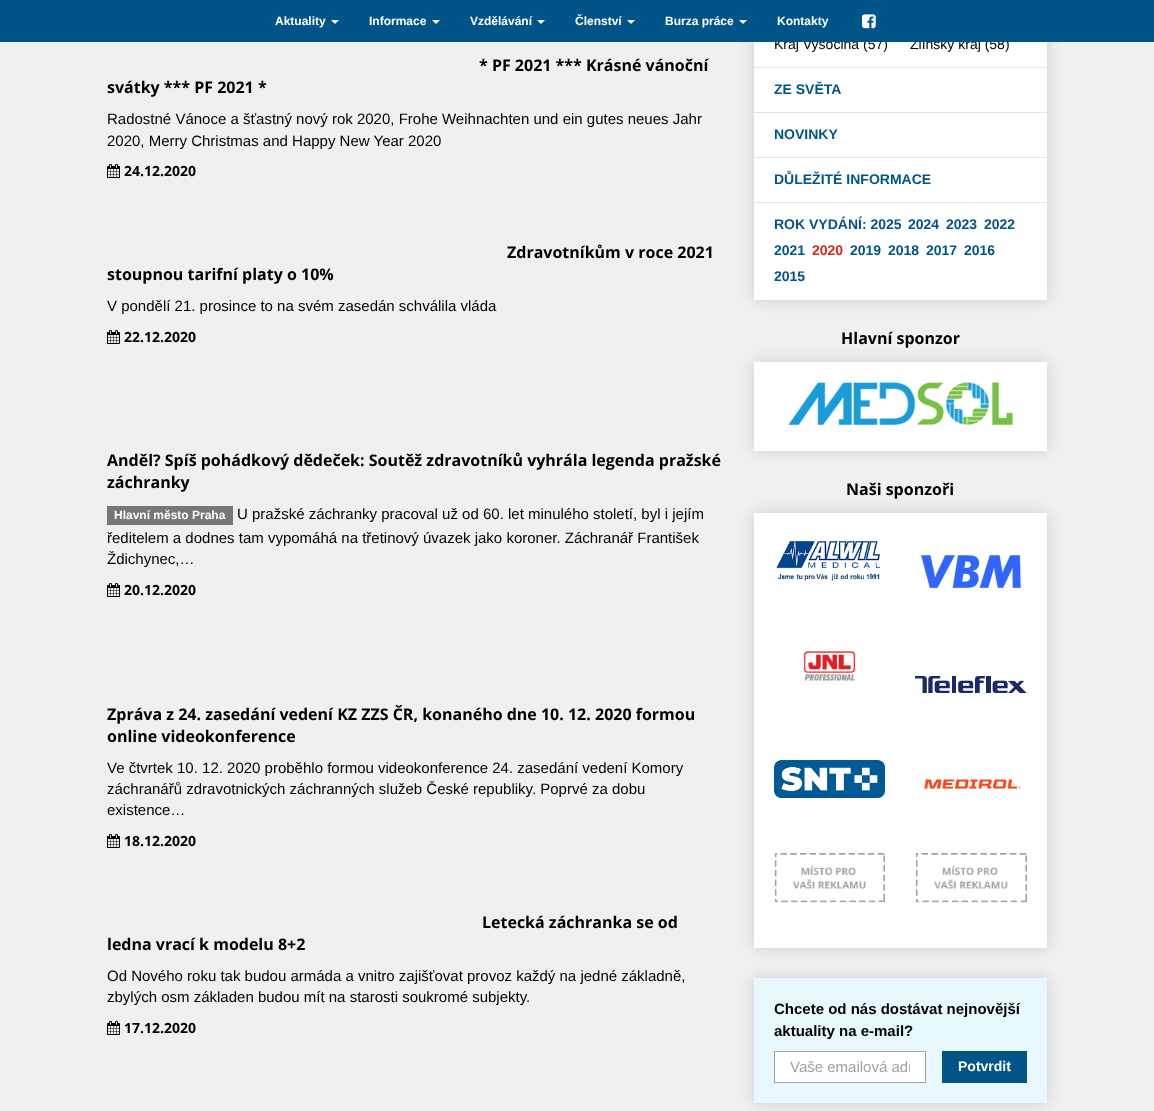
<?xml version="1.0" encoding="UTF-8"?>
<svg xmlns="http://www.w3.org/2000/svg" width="1154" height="1111">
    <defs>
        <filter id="blur1" x="-50%" y="-200%" width="200%" height="500%"><feGaussianBlur stdDeviation="7.5"/></filter>
        <clipPath id="clip1"><rect x="790" y="1058" width="120" height="17"/></clipPath>
    </defs>
    <rect width="100%" height="100%" fill="#F0F0F1"/>
    <rect x="754" y="-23" width="293" height="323" fill="#000000" fill-opacity="0.15" filter="url(#blur1)"/>
    <rect x="754" y="42" width="293" height="258" fill="#FFFFFF"/>
    <text x="774" y="49" font-family="Liberation Sans" font-size="14" fill="#000000">Kraj Vysočina (57)</text>
    <text x="910" y="49" font-family="Liberation Sans" font-size="14" fill="#000000">Zlínský kraj (58)</text>
    <rect x="0" y="0" width="1154" height="42" fill="#005488"/>
    <text x="275" y="25" font-family="Liberation Sans" font-size="12" font-weight="700" fill="#FFFFFF">Aktuality</text>
    <path d="M 331 20 H 339 L 335 24 Z" fill="#FFFFFF"/>
    <text x="369" y="25" font-family="Liberation Sans" font-size="12" font-weight="700" fill="#FFFFFF">Informace</text>
    <path d="M 432 20 H 440 L 436 24 Z" fill="#FFFFFF"/>
    <text x="470" y="25" font-family="Liberation Sans" font-size="12" font-weight="700" fill="#FFFFFF">Vzdělávání</text>
    <path d="M 537 20 H 545 L 541 24 Z" fill="#FFFFFF"/>
    <text x="575" y="25" font-family="Liberation Sans" font-size="12" font-weight="700" fill="#FFFFFF">Členství</text>
    <path d="M 627 20 H 635 L 631 24 Z" fill="#FFFFFF"/>
    <text x="665" y="25" font-family="Liberation Sans" font-size="12" font-weight="700" fill="#FFFFFF">Burza práce</text>
    <path d="M 739 20 H 747 L 743 24 Z" fill="#FFFFFF"/>
    <text x="777" y="25" font-family="Liberation Sans" font-size="12" font-weight="700" fill="#FFFFFF">Kontakty</text>
    <image x="862" y="14" width="14" height="15" href="img_01.png"/>
    <text x="479" y="71" font-family="Open Sans" font-size="16" font-weight="700" fill="#000000">* PF 2021 *** Krásné vánoční</text>
    <text x="107" y="93" font-family="Open Sans" font-size="16" font-weight="700" fill="#000000">svátky *** PF 2021 *</text>
    <text font-family="Liberation Sans" font-size="15" fill="#000000">
        <tspan x="107" y="124">Radostné Vánoce a šťastný nový rok 2020, Frohe Weihnachten und ein gutes neues Jahr</tspan>
        <tspan x="107" y="146">2020, Merry Christmas and Happy New Year 2020</tspan>
    </text>
    <image x="107" y="164" width="13" height="14" href="img_02.png"/>
    <text x="124" y="176" font-family="Open Sans" font-size="14" font-weight="700" fill="#000000">24.12.2020</text>
    <text x="507" y="258" font-family="Open Sans" font-size="16" font-weight="700" fill="#000000">Zdravotníkům v roce 2021</text>
    <text x="107" y="280" font-family="Open Sans" font-size="16" font-weight="700" fill="#000000">stoupnou tarifní platy o 10%</text>
    <text x="107" y="311" font-family="Liberation Sans" font-size="15" fill="#000000">V pondělí 21. prosince to na svém zasedán schválila vláda</text>
    <image x="107" y="330" width="13" height="14" href="img_02.png"/>
    <text x="124" y="342" font-family="Open Sans" font-size="14" font-weight="700" fill="#000000">22.12.2020</text>
    <text font-family="Open Sans" font-size="16" font-weight="700" fill="#000000">
        <tspan x="107" y="466">Anděl? Spíš pohádkový dědeček: Soutěž zdravotníků vyhrála legenda pražské</tspan>
        <tspan x="107" y="488">záchranky</tspan>
    </text>
    <rect x="107" y="506" width="126" height="19" fill="#777777"/>
    <text x="114" y="519" font-family="Liberation Sans" font-size="12" font-weight="700" fill="#FFFFFF">Hlavní město Praha</text>
    <text x="237" y="519" font-family="Liberation Sans" font-size="15" fill="#000000">U pražské záchranky pracoval už od 60. let minulého století, byl i jejím</text>
    <text font-family="Liberation Sans" font-size="15" fill="#000000">
        <tspan x="107" y="543">ředitelem a dodnes tam vypomáhá na třetinový úvazek jako koroner. Záchranář František</tspan>
        <tspan x="107" y="564">Ždichynec,…</tspan>
    </text>
    <image x="107" y="583" width="13" height="14" href="img_02.png"/>
    <text x="124" y="595" font-family="Open Sans" font-size="14" font-weight="700" fill="#000000">20.12.2020</text>
    <text font-family="Open Sans" font-size="16" font-weight="700" fill="#000000">
        <tspan x="107" y="720">Zpráva z 24. zasedání vedení KZ ZZS ČR, konaného dne 10. 12. 2020 formou</tspan>
        <tspan x="107" y="742">online videokonference</tspan>
    </text>
    <text font-family="Liberation Sans" font-size="15" fill="#000000">
        <tspan x="107" y="773">Ve čtvrtek 10. 12. 2020 proběhlo formou videokonference 24. zasedání vedení Komory</tspan>
        <tspan x="107" y="794">záchranářů zdravotnických záchranných služeb České republiky. Poprvé za dobu</tspan>
        <tspan x="107" y="815">existence…</tspan>
    </text>
    <image x="107" y="834" width="13" height="14" href="img_02.png"/>
    <text x="124" y="846" font-family="Open Sans" font-size="14" font-weight="700" fill="#000000">18.12.2020</text>
    <text x="482" y="928" font-family="Open Sans" font-size="16" font-weight="700" fill="#000000">Letecká záchranka se od</text>
    <text x="107" y="950" font-family="Open Sans" font-size="16" font-weight="700" fill="#000000">ledna vrací k modelu 8+2</text>
    <text font-family="Liberation Sans" font-size="15" fill="#000000">
        <tspan x="107" y="981">Od Nového roku tak budou armáda a vnitro zajišťovat provoz každý na jedné základně,</tspan>
        <tspan x="107" y="1002">zbylých osm základen budou mít na starosti soukromé subjekty.</tspan>
    </text>
    <image x="107" y="1021" width="13" height="14" href="img_02.png"/>
    <text x="124" y="1033" font-family="Open Sans" font-size="14" font-weight="700" fill="#000000">17.12.2020</text>
    <rect x="754" y="67" width="293" height="1" fill="#E5E5E5"/>
    <text x="774" y="94" font-family="Liberation Sans" font-size="14" font-weight="700" fill="#005488">ZE SVĚTA</text>
    <rect x="754" y="112" width="293" height="1" fill="#E5E5E5"/>
    <text x="774" y="139" font-family="Liberation Sans" font-size="14" font-weight="700" fill="#005488">NOVINKY</text>
    <rect x="754" y="157" width="293" height="1" fill="#E5E5E5"/>
    <text x="774" y="184" font-family="Liberation Sans" font-size="14" font-weight="700" fill="#005488">DŮLEŽITÉ INFORMACE</text>
    <rect x="754" y="202" width="293" height="1" fill="#E5E5E5"/>
    <text x="774" y="229" font-family="Liberation Sans" font-size="14" font-weight="700" fill="#005488">ROK VYDÁNÍ: 2025</text>
    <text x="908" y="229" font-family="Liberation Sans" font-size="14" font-weight="700" fill="#005488">2024</text>
    <text x="946" y="229" font-family="Liberation Sans" font-size="14" font-weight="700" fill="#005488">2023</text>
    <text x="984" y="229" font-family="Liberation Sans" font-size="14" font-weight="700" fill="#005488">2022</text>
    <text x="774" y="255" font-family="Liberation Sans" font-size="14" font-weight="700" fill="#005488">2021</text>
    <text x="812" y="255" font-family="Liberation Sans" font-size="14" font-weight="700" fill="#DA251C">2020</text>
    <text x="850" y="255" font-family="Liberation Sans" font-size="14" font-weight="700" fill="#005488">2019</text>
    <text x="888" y="255" font-family="Liberation Sans" font-size="14" font-weight="700" fill="#005488">2018</text>
    <text x="926" y="255" font-family="Liberation Sans" font-size="14" font-weight="700" fill="#005488">2017</text>
    <text x="964" y="255" font-family="Liberation Sans" font-size="14" font-weight="700" fill="#005488">2016</text>
    <text x="774" y="281" font-family="Liberation Sans" font-size="14" font-weight="700" fill="#005488">2015</text>
    <rect x="754" y="362" width="293" height="89" fill="#000000" fill-opacity="0.15" filter="url(#blur1)"/>
    <text x="841" y="344" font-family="Open Sans" font-size="16" font-weight="700" fill="#000000">Hlavní sponzor</text>
    <rect x="754" y="362" width="293" height="89" fill="#FFFFFF"/>
    <image x="788" y="382" width="225" height="43" href="img_03.png"/>
    <rect x="754" y="513" width="293" height="435" fill="#000000" fill-opacity="0.15" filter="url(#blur1)"/>
    <text x="846" y="495" font-family="Open Sans" font-size="16" font-weight="700" fill="#000000">Naši sponzoři</text>
    <rect x="754" y="513" width="293" height="435" fill="#FFFFFF"/>
    <image x="776" y="541" width="105" height="40" href="img_04.png"/>
    <image x="921" y="555" width="100" height="33" href="img_05.png"/>
    <image x="803" y="651" width="53" height="30" href="img_06.png"/>
    <image x="915" y="676" width="112" height="17" href="img_07.png"/>
    <image x="774" y="760" width="111" height="38" href="img_08.png"/>
    <image x="924" y="779" width="97" height="10" href="img_09.png"/>
    <image x="774" y="853" width="111" height="50" href="img_10.png"/>
    <image x="915" y="853" width="112" height="50" href="img_11.png"/>
    <rect x="754" y="978" width="293" height="125" fill="#000000" fill-opacity="0.15" filter="url(#blur1)"/>
    <rect x="754" y="978" width="293" height="125" fill="#E9F7FF"/>
    <text font-family="Liberation Sans" font-size="15" font-weight="700" fill="#000000">
        <tspan x="774" y="1014">Chcete od nás dostávat nejnovější</tspan>
        <tspan x="774" y="1036">aktuality na e-mail?</tspan>
    </text>
    <rect x="774.5" y="1051.5" width="151" height="31" fill="#FFFFFF" stroke="#A1A1A1"/>
    <g clip-path="url(#clip1)">
        <text x="790" y="1072" font-family="Liberation Sans" font-size="15" fill="#A1A1A1">Vaše emailová adr</text>
    </g>
    <rect x="942" y="1051" width="85" height="32" fill="#005488"/>
    <text x="958" y="1071" font-family="Liberation Sans" font-size="14" font-weight="700" fill="#FFFFFF">Potvrdit</text>
</svg>
